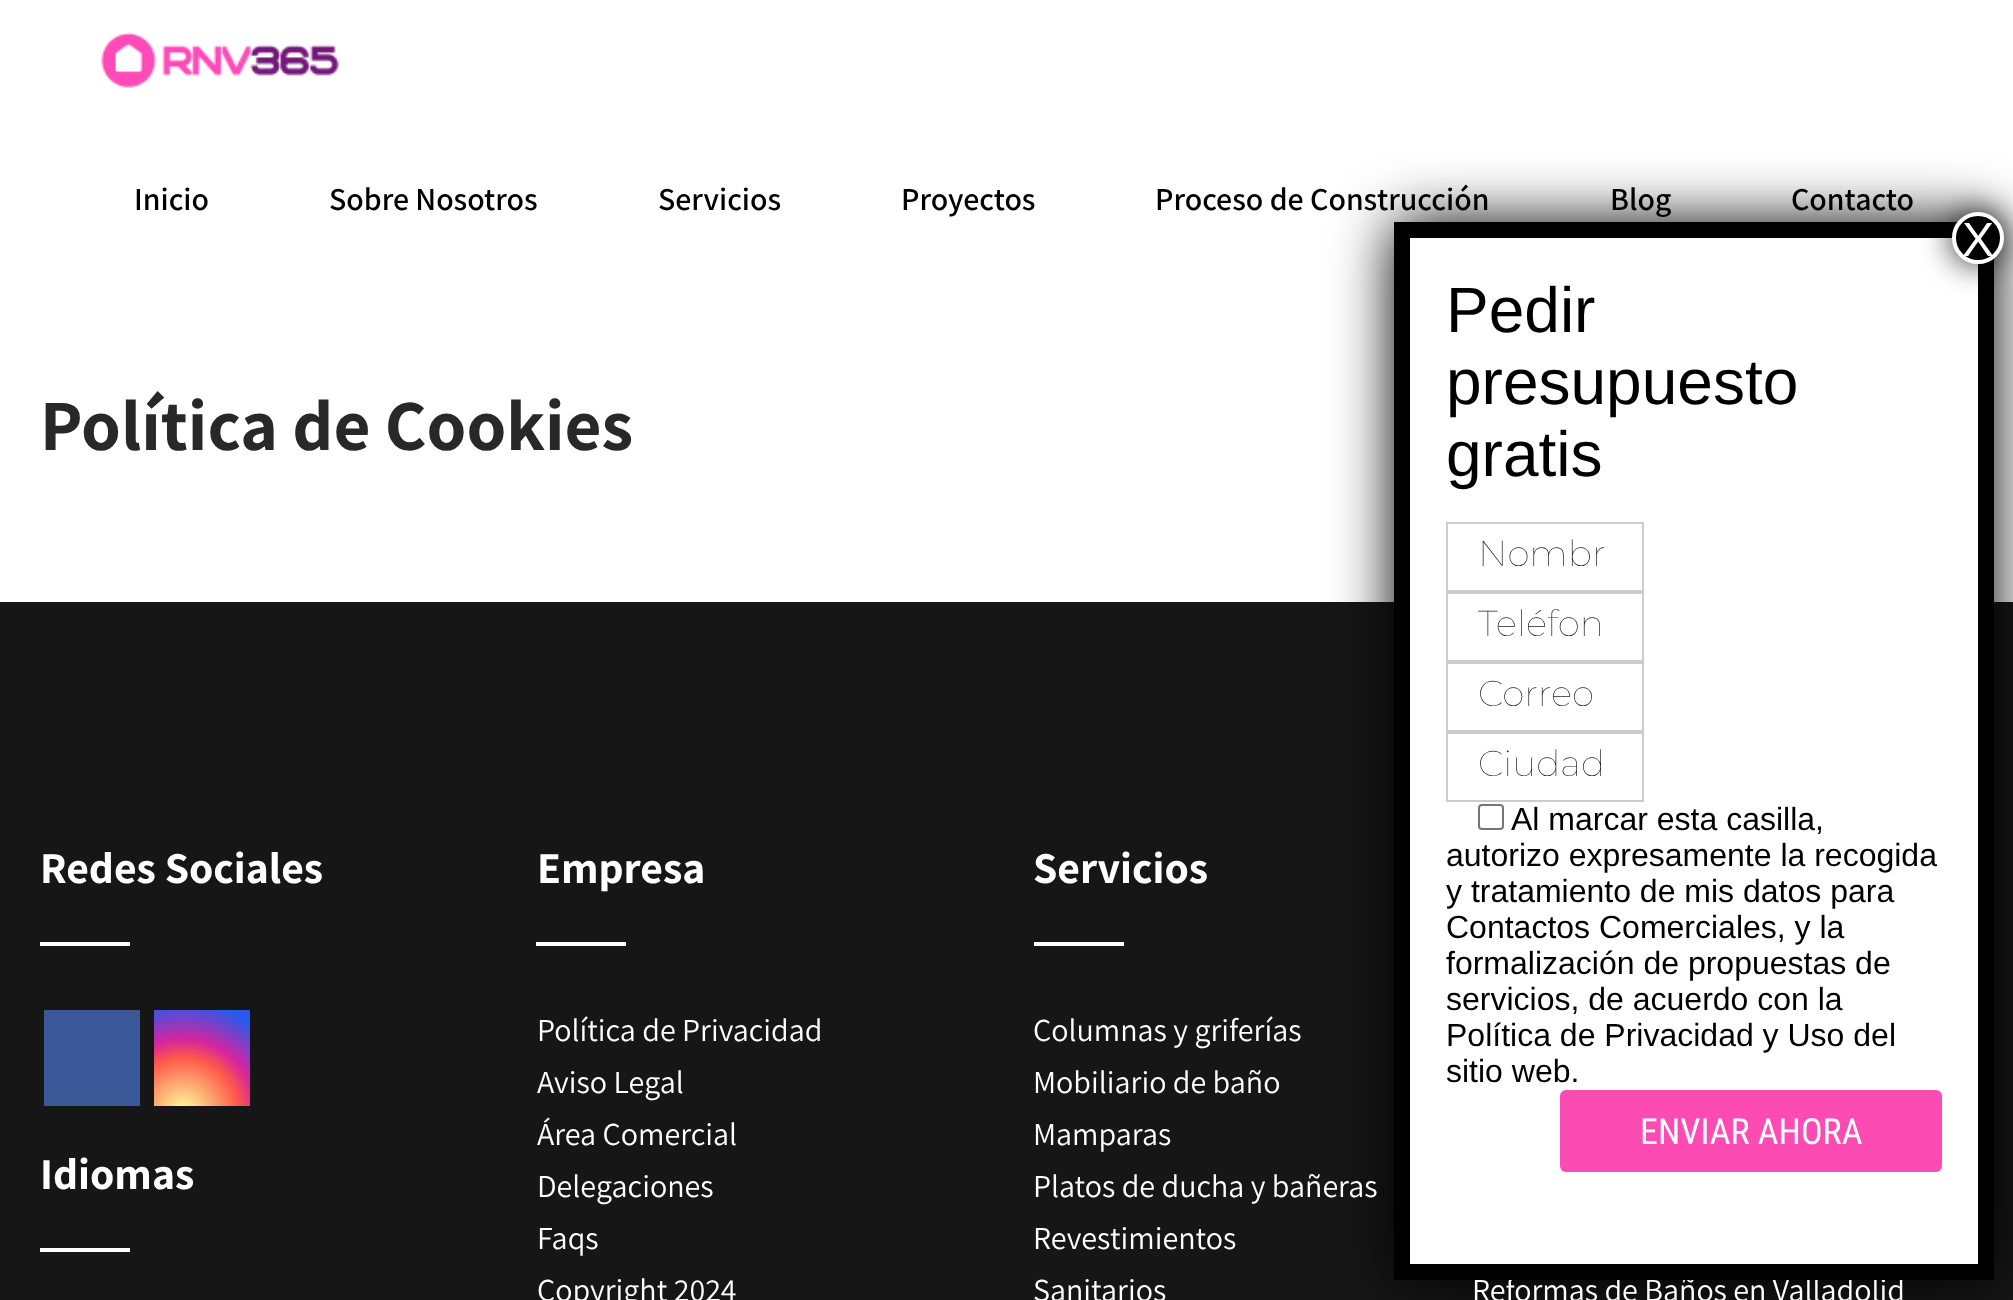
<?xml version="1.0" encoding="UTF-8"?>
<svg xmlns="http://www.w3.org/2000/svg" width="2013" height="1300">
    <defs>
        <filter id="blur1" x="-50%" y="-200%" width="200%" height="500%"><feGaussianBlur stdDeviation="30"/></filter>
        <filter id="blur2" x="-50%" y="-200%" width="200%" height="500%"><feGaussianBlur stdDeviation="15"/></filter>
        <radialGradient id="g1" gradientUnits="userSpaceOnUse" cx="183" cy="1113" r="123"><stop offset="0" stop-color="#FDF497"/><stop offset="0.05" stop-color="#FDF497"/><stop offset="0.45" stop-color="#FD5949"/><stop offset="0.6" stop-color="#D6249F"/><stop offset="0.9" stop-color="#285AEB"/></radialGradient>
    </defs>
    <rect width="100%" height="100%" fill="#FFFFFF"/>
    <image x="101" y="32" width="238" height="56" href="img_01.png"/>
    <text x="134" y="210" font-family="Assistant" font-size="32" font-weight="600" fill="#000000">Inicio</text>
    <text x="329" y="210" font-family="Assistant" font-size="32" font-weight="600" fill="#000000">Sobre Nosotros</text>
    <text x="658" y="210" font-family="Assistant" font-size="32" font-weight="600" fill="#000000">Servicios</text>
    <text x="901" y="210" font-family="Assistant" font-size="32" font-weight="600" fill="#000000">Proyectos</text>
    <text x="1155" y="210" font-family="Assistant" font-size="32" font-weight="600" fill="#000000">Proceso de Construcción</text>
    <text x="1610" y="210" font-family="Assistant" font-size="32" font-weight="600" fill="#000000">Blog</text>
    <text x="1791" y="210" font-family="Assistant" font-size="32" font-weight="600" fill="#000000">Contacto</text>
    <rect x="0" y="602" width="2013" height="698" fill="#161616"/>
    <rect x="1394" y="222" width="600" height="1058" rx="6" fill="#020202" filter="url(#blur1)"/>
    <rect x="1410" y="238" width="568" height="1026" fill="#FFFFFF"/>
    <text x="1472" y="1301" font-family="Assistant" font-size="32" fill="#FFFFFF">Reformas de Baños en Valladolid</text>
    <path d="M 1402 230 H 1986 V 1272 H 1402 Z" fill="none" stroke="#000000" stroke-width="16"/>
    <rect x="1950" y="210" width="56" height="56" rx="28" fill="#020202" fill-opacity="0.75" filter="url(#blur2)"/>
    <circle cx="1978" cy="238" r="24" fill="#000000" stroke="#FFFFFF" stroke-width="4"/>
    <text x="1962" y="256" font-family="Liberation Sans" font-size="48" fill="#FFFFFF">X</text>
    <text font-family="Liberation Sans" font-size="64" fill="#000000">
        <tspan x="1446" y="332">Pedir</tspan>
        <tspan x="1446" y="404">presupuesto</tspan>
        <tspan x="1446" y="476">gratis</tspan>
    </text>
    <rect x="1447" y="523" width="196" height="68" fill="none" stroke="#CCCCCC" stroke-width="2"/>
    <text x="1478" y="566" font-family="Montserrat" font-size="36" font-weight="100" fill="#1E1E1E">Nombr</text>
    <rect x="1447" y="593" width="196" height="68" fill="none" stroke="#CCCCCC" stroke-width="2"/>
    <text x="1478" y="636" font-family="Montserrat" font-size="36" font-weight="100" fill="#1E1E1E">Teléfon</text>
    <rect x="1447" y="663" width="196" height="68" fill="none" stroke="#CCCCCC" stroke-width="2"/>
    <text x="1478" y="706" font-family="Montserrat" font-size="36" font-weight="100" fill="#1E1E1E">Correo</text>
    <rect x="1447" y="733" width="196" height="68" fill="none" stroke="#CCCCCC" stroke-width="2"/>
    <text x="1478" y="776" font-family="Montserrat" font-size="36" font-weight="100" fill="#1E1E1E">Ciudad</text>
    <rect x="1479" y="805" width="24" height="24" rx="3" fill="none" stroke="#767676" stroke-width="2"/>
    <text x="1511" y="830" font-family="Liberation Sans" font-size="32" fill="#000000">Al marcar esta casilla,</text>
    <text font-family="Liberation Sans" font-size="32" fill="#000000">
        <tspan x="1446" y="866">autorizo expresamente la recogida</tspan>
        <tspan x="1446" y="902">y tratamiento de mis datos para</tspan>
        <tspan x="1446" y="938">Contactos Comerciales, y la</tspan>
        <tspan x="1446" y="974">formalización de propuestas de</tspan>
        <tspan x="1446" y="1010">servicios, de acuerdo con la</tspan>
        <tspan x="1446" y="1046">Política de Privacidad y Uso del</tspan>
        <tspan x="1446" y="1082">sitio web.</tspan>
    </text>
    <rect x="1560" y="1090" width="382" height="82" rx="6" fill="#FC4CB4"/>
    <text x="1640" y="1144" font-family="Roboto Condensed" font-size="36" fill="#FFFFFF">ENVIAR AHORA</text>
    <text x="40" y="883" font-family="Assistant" font-size="44" font-weight="700" fill="#FFFFFF">Redes Sociales</text>
    <rect x="40" y="942" width="90" height="4" fill="#FFFFFF"/>
    <rect x="44" y="1010" width="96" height="96" fill="#3B5998"/>
    <rect x="154" y="1010" width="96" height="96" fill="url(#g1)"/>
    <text x="40" y="1189" font-family="Assistant" font-size="44" font-weight="700" fill="#FFFFFF">Idiomas</text>
    <rect x="40" y="1248" width="90" height="4" fill="#FFFFFF"/>
    <text x="537" y="883" font-family="Assistant" font-size="44" font-weight="700" fill="#FFFFFF">Empresa</text>
    <rect x="536" y="942" width="90" height="4" fill="#FFFFFF"/>
    <text font-family="Assistant" font-size="32" fill="#FFFFFF">
        <tspan x="537" y="1041">Política de Privacidad</tspan>
        <tspan x="537" y="1093">Aviso Legal</tspan>
        <tspan x="537" y="1145">Área Comercial</tspan>
        <tspan x="537" y="1197">Delegaciones</tspan>
        <tspan x="537" y="1249">Faqs</tspan>
        <tspan x="537" y="1301">Copyright 2024</tspan>
    </text>
    <text x="1033" y="883" font-family="Assistant" font-size="44" font-weight="700" fill="#FFFFFF">Servicios</text>
    <rect x="1034" y="942" width="90" height="4" fill="#FFFFFF"/>
    <text font-family="Assistant" font-size="32" fill="#FFFFFF">
        <tspan x="1033" y="1041">Columnas y griferías</tspan>
        <tspan x="1033" y="1093">Mobiliario de baño</tspan>
        <tspan x="1033" y="1145">Mamparas</tspan>
        <tspan x="1033" y="1197">Platos de ducha y bañeras</tspan>
        <tspan x="1033" y="1249">Revestimientos</tspan>
        <tspan x="1033" y="1301">Sanitarios</tspan>
    </text>
    <text x="40" y="450" font-family="Assistant" font-size="72" font-weight="700" fill="#282828">Política de Cookies</text>
</svg>
